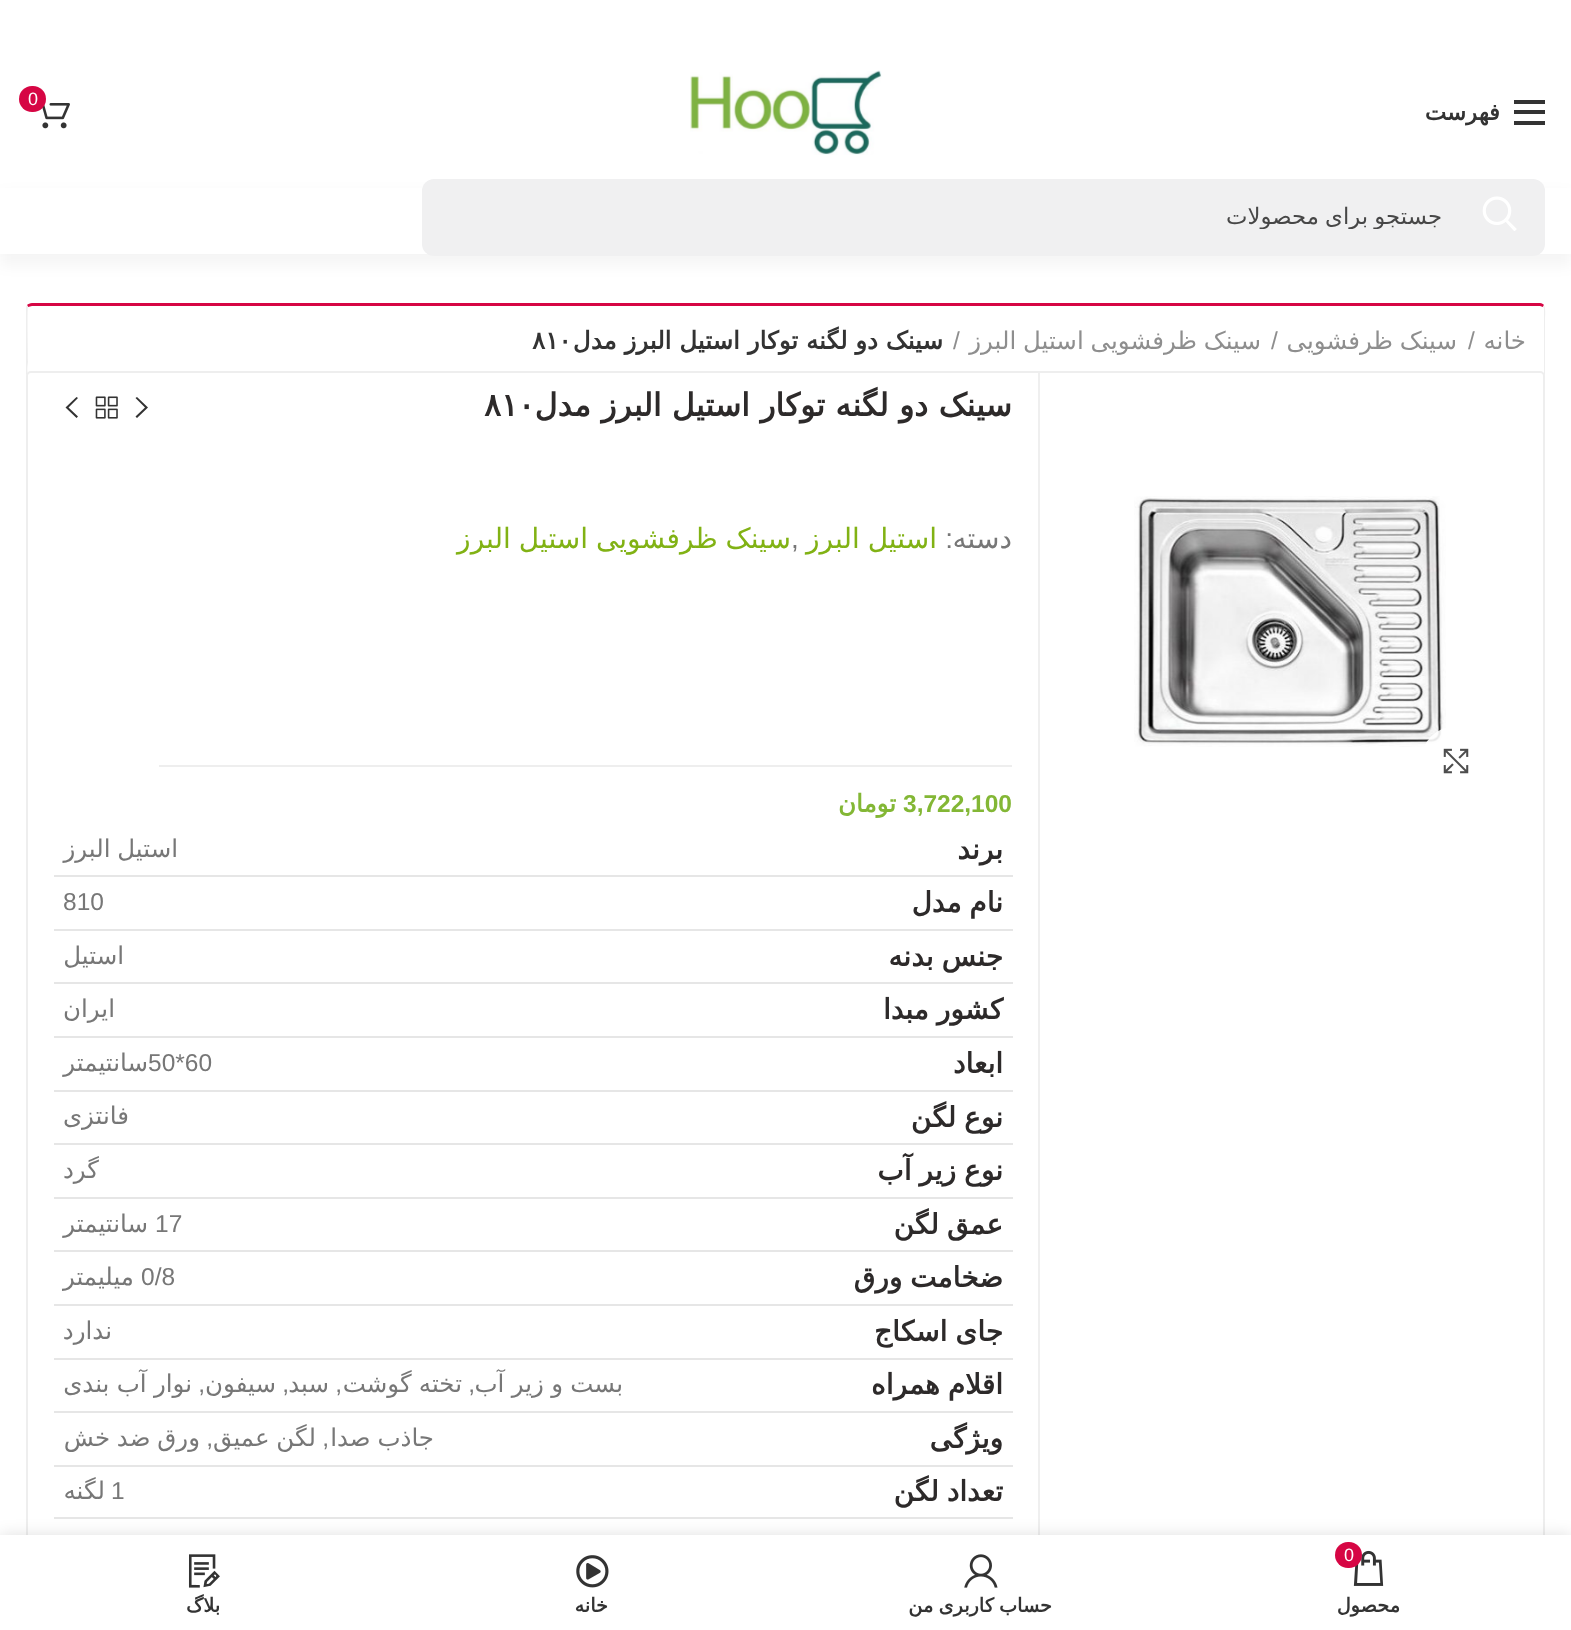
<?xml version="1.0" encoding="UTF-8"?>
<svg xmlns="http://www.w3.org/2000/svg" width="1571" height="1630">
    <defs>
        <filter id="blur1" x="-50%" y="-200%" width="200%" height="500%"><feGaussianBlur stdDeviation="7"/></filter>
        <clipPath id="clip1"><rect x="439" y="203" width="1003" height="26"/></clipPath>
        <filter id="blur2" x="-50%" y="-200%" width="200%" height="500%"><feGaussianBlur stdDeviation="8"/></filter>
    </defs>
    <rect width="100%" height="100%" fill="#FFFFFF"/>
    <image x="690" y="70" width="192" height="85" href="img_01.png"/>
    <image x="42" y="103" width="28" height="26" href="img_02.png"/>
    <rect x="19" y="86" width="27" height="26" rx="13" fill="#D60644"/>
    <text x="28" y="105" font-family="Liberation Sans" font-size="18" fill="#FFFFFF">0</text>
    <rect x="1514" y="110" width="31" height="4" fill="#333333"/>
    <rect x="1514" y="100" width="31" height="4" fill="#333333"/>
    <rect x="1514" y="121" width="31" height="4" fill="#333333"/>
    <text x="1500" y="120" font-family="DejaVu Sans" font-size="22.75" font-weight="700" direction="rtl" fill="#333333">فهرست</text>
    <rect x="0" y="193" width="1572" height="73" fill="#000000" fill-opacity="0.04" filter="url(#blur1)"/>
    <rect x="0" y="188" width="1571" height="66" fill="#FFFFFF"/>
    <rect x="422" y="179" width="1123" height="77" rx="12" fill="#F0F0F1"/>
    <image x="1482" y="196" width="35" height="35" href="img_03.png"/>
    <g clip-path="url(#clip1)">
        <text x="1442" y="224" word-spacing="-1" font-family="DejaVu Sans" font-size="22.75" direction="rtl" fill="#474747">جستجو برای محصولات</text>
    </g>
    <path d="M 32 303 C 30 303 28 304 27 305 L 28 307 L 32 306 H 1540 L 1543 307 L 1544 305 C 1543 304 1542 303 1540 303 Z" fill="#D60644"/>
    <path d="M 1544 305 C 1546 308 1545 318 1545 319 V 374 L 1544 376 L 1543 375 L 1544 373 V 308 L 1543 307 Z" fill="#EEEEEE"/>
    <path d="M 26 307 L 27 305 L 28 307 C 27 308 28 356 28 362 C 28 363 26 373 29 375 L 28 377 L 26 374 Z" fill="#EEEEEE"/>
    <text x="1526" y="349" font-family="DejaVu Sans" font-size="24.5" direction="rtl" fill="#8E8E8E">خانه</text>
    <text x="1468" y="349" font-family="Liberation Sans" font-size="24.5" fill="#8E8E8E">/</text>
    <text x="1457" y="349" word-spacing="-1" font-family="DejaVu Sans" font-size="24.5" direction="rtl" fill="#8E8E8E">سینک ظرفشویی</text>
    <text x="1271" y="349" font-family="Liberation Sans" font-size="24.5" fill="#8E8E8E">/</text>
    <text x="1261" y="349" word-spacing="-1" font-family="DejaVu Sans" font-size="24.5" direction="rtl" fill="#8E8E8E">سینک ظرفشویی استیل البرز</text>
    <text x="953" y="349" font-family="Liberation Sans" font-size="24.5" fill="#8E8E8E">/</text>
    <text x="943" y="349" font-family="DejaVu Sans" font-size="24.5" font-weight="700" direction="rtl" fill="#333333">سینک دو لگنه توکار استیل البرز مدل</text>
    <text x="532" y="349" font-family="DejaVu Sans" font-size="24.5" font-weight="700" fill="#333333">۸۱۰</text>
    <rect x="27" y="372" width="1517" height="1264" rx="4" fill="#FFFFFF" stroke="#EEEEEE" stroke-width="2"/>
    <rect x="1038" y="373" width="2" height="1162" fill="#EFEFEF"/>
    <image x="1134" y="496" width="312" height="251" href="img_04.png"/>
    <circle cx="1456" cy="761" r="35" fill="#FFFFFF" fill-opacity="0.9"/>
    <image x="1443" y="748" width="26" height="26" href="img_05.png"/>
    <text x="1012" y="416" word-spacing="0.25" font-family="DejaVu Sans" font-size="31.5" font-weight="700" direction="rtl" fill="#2D2A2A">سینک دو لگنه توکار استیل البرز مدل</text>
    <text x="484" y="416" font-family="DejaVu Sans" font-size="31.5" font-weight="700" fill="#2D2A2A">۸۱۰</text>
    <path d="M 137 397 L 148 407.5 L 137 418 L 135.5 416.5 L 145 407.5 L 135.5 398 Z" fill="#333333"/>
    <image x="95" y="396" width="23" height="23" href="img_06.png"/>
    <path d="M 78 398 L 68.5 407.5 L 78 416.5 L 76.5 418 L 65.5 407.5 L 76.5 397 Z" fill="#333333"/>
    <rect x="159" y="765" width="853" height="2" fill="#EEEEEE"/>
    <text x="1012" y="548" font-family="DejaVu Sans" font-size="28" direction="rtl" fill="#777777">دسته</text>
    <text x="953" y="548" font-family="Liberation Sans" font-size="28" direction="rtl" fill="#777777">:</text>
    <text x="937" y="548" word-spacing="-1" font-family="DejaVu Sans" font-size="28" direction="rtl" fill="#81B214">استیل البرز</text>
    <text x="791" y="548" font-family="Liberation Sans" font-size="28" fill="#777777">,</text>
    <text x="791" y="548" word-spacing="-1" font-family="DejaVu Sans" font-size="28" direction="rtl" fill="#81B214">سینک ظرفشویی استیل البرز</text>
    <text x="903" y="812" font-family="Liberation Sans" font-size="24.5" font-weight="700" fill="#83B735">3,722,100</text>
    <text x="896" y="812" font-family="DejaVu Sans" font-size="24.5" font-weight="700" direction="rtl" fill="#83B735">تومان</text>
    <text x="1003" y="859" font-family="DejaVu Sans" font-size="28" font-weight="700" direction="rtl" fill="#2D2A2A">برند</text>
    <rect x="54" y="875" width="959" height="2" fill="#E6E6E6"/>
    <text x="178" y="857" word-spacing="-1" font-family="DejaVu Sans" font-size="24.5" direction="rtl" fill="#777777">استیل البرز</text>
    <text x="1003" y="912" word-spacing="-1" font-family="DejaVu Sans" font-size="28" font-weight="700" direction="rtl" fill="#2D2A2A">نام مدل</text>
    <rect x="54" y="929" width="959" height="2" fill="#E6E6E6"/>
    <text x="63" y="910" font-family="Liberation Sans" font-size="24.5" fill="#777777">810</text>
    <text x="1003" y="966" word-spacing="-1" font-family="DejaVu Sans" font-size="28" font-weight="700" direction="rtl" fill="#2D2A2A">جنس بدنه</text>
    <rect x="54" y="982" width="959" height="2" fill="#E6E6E6"/>
    <text x="124" y="964" font-family="DejaVu Sans" font-size="24.5" direction="rtl" fill="#777777">استیل</text>
    <text x="1003" y="1019" word-spacing="-1" font-family="DejaVu Sans" font-size="28" font-weight="700" direction="rtl" fill="#2D2A2A">کشور مبدا</text>
    <rect x="54" y="1036" width="959" height="2" fill="#E6E6E6"/>
    <text x="115" y="1017" font-family="DejaVu Sans" font-size="24.5" direction="rtl" fill="#777777">ایران</text>
    <text x="1003" y="1073" font-family="DejaVu Sans" font-size="28" font-weight="700" direction="rtl" fill="#2D2A2A">ابعاد</text>
    <rect x="54" y="1090" width="959" height="2" fill="#E6E6E6"/>
    <text x="148" y="1071" font-family="Liberation Sans" font-size="24.5" fill="#777777">50*60</text>
    <text x="148" y="1071" font-family="DejaVu Sans" font-size="24.5" direction="rtl" fill="#777777">سانتیمتر</text>
    <text x="1003" y="1127" word-spacing="-1" font-family="DejaVu Sans" font-size="28" font-weight="700" direction="rtl" fill="#2D2A2A">نوع لگن</text>
    <rect x="54" y="1143" width="959" height="2" fill="#E6E6E6"/>
    <text x="129" y="1124" font-family="DejaVu Sans" font-size="24.5" direction="rtl" fill="#777777">فانتزی</text>
    <text x="1003" y="1180" word-spacing="-1" font-family="DejaVu Sans" font-size="28" font-weight="700" direction="rtl" fill="#2D2A2A">نوع زیر آب</text>
    <rect x="54" y="1197" width="959" height="2" fill="#E6E6E6"/>
    <text x="99" y="1178" font-family="DejaVu Sans" font-size="24.5" direction="rtl" fill="#777777">گرد</text>
    <text x="1003" y="1234" word-spacing="-1" font-family="DejaVu Sans" font-size="28" font-weight="700" direction="rtl" fill="#2D2A2A">عمق لگن</text>
    <rect x="54" y="1250" width="959" height="2" fill="#E6E6E6"/>
    <text x="155" y="1232" font-family="Liberation Sans" font-size="24.5" fill="#777777">17</text>
    <text x="148" y="1232" font-family="DejaVu Sans" font-size="24.5" direction="rtl" fill="#777777">سانتیمتر</text>
    <text x="1003" y="1287" word-spacing="-1" font-family="DejaVu Sans" font-size="28" font-weight="700" direction="rtl" fill="#2D2A2A">ضخامت ورق</text>
    <rect x="54" y="1304" width="959" height="2" fill="#E6E6E6"/>
    <text x="141" y="1285" font-family="Liberation Sans" font-size="24.5" fill="#777777">0/8</text>
    <text x="134" y="1285" font-family="DejaVu Sans" font-size="24.5" direction="rtl" fill="#777777">میلیمتر</text>
    <text x="1003" y="1341" word-spacing="-1" font-family="DejaVu Sans" font-size="28" font-weight="700" direction="rtl" fill="#2D2A2A">جای اسکاج</text>
    <rect x="54" y="1358" width="959" height="2" fill="#E6E6E6"/>
    <text x="112" y="1339" font-family="DejaVu Sans" font-size="24.5" direction="rtl" fill="#777777">ندارد</text>
    <text x="1003" y="1394" word-spacing="-1" font-family="DejaVu Sans" font-size="28" font-weight="700" direction="rtl" fill="#2D2A2A">اقلام همراه</text>
    <rect x="54" y="1411" width="959" height="2" fill="#E6E6E6"/>
    <text x="623" y="1392" word-spacing="-0.5" font-family="DejaVu Sans" font-size="24.5" direction="rtl" fill="#777777">بست و زیر آب</text>
    <text x="475" y="1392" font-family="Liberation Sans" font-size="24.5" direction="rtl" fill="#777777">,</text>
    <text x="462" y="1392" word-spacing="-0.5" font-family="DejaVu Sans" font-size="24.5" direction="rtl" fill="#777777">تخته گوشت</text>
    <text x="342" y="1392" font-family="Liberation Sans" font-size="24.5" direction="rtl" fill="#777777">,</text>
    <text x="329" y="1392" font-family="DejaVu Sans" font-size="24.5" direction="rtl" fill="#777777">سبد</text>
    <text x="289" y="1392" font-family="Liberation Sans" font-size="24.5" direction="rtl" fill="#777777">,</text>
    <text x="276" y="1392" font-family="DejaVu Sans" font-size="24.5" direction="rtl" fill="#777777">سیفون</text>
    <text x="205" y="1392" font-family="Liberation Sans" font-size="24.5" direction="rtl" fill="#777777">,</text>
    <text x="192" y="1392" word-spacing="-0.5" font-family="DejaVu Sans" font-size="24.5" direction="rtl" fill="#777777">نوار آب بندی</text>
    <text x="1003" y="1448" font-family="DejaVu Sans" font-size="28" font-weight="700" direction="rtl" fill="#2D2A2A">ویژگی</text>
    <rect x="54" y="1465" width="959" height="2" fill="#E6E6E6"/>
    <text x="434" y="1446" word-spacing="-1" font-family="DejaVu Sans" font-size="24.5" direction="rtl" fill="#777777">جاذب صدا</text>
    <text x="329" y="1446" font-family="Liberation Sans" font-size="24.5" direction="rtl" fill="#777777">,</text>
    <text x="316" y="1446" word-spacing="-1" font-family="DejaVu Sans" font-size="24.5" direction="rtl" fill="#777777">لگن عمیق</text>
    <text x="213" y="1446" font-family="Liberation Sans" font-size="24.5" direction="rtl" fill="#777777">,</text>
    <text x="200" y="1446" word-spacing="-1" font-family="DejaVu Sans" font-size="24.5" direction="rtl" fill="#777777">ورق ضد خش</text>
    <text x="1003" y="1501" word-spacing="-1" font-family="DejaVu Sans" font-size="28" font-weight="700" direction="rtl" fill="#2D2A2A">تعداد لگن</text>
    <rect x="54" y="1517" width="959" height="2" fill="#E6E6E6"/>
    <text x="111" y="1499" font-family="Liberation Sans" font-size="24.5" fill="#777777">1</text>
    <text x="105" y="1499" font-family="DejaVu Sans" font-size="24.5" direction="rtl" fill="#777777">لگنه</text>
    <rect x="0" y="1535" width="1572" height="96" fill="#000000" fill-opacity="0.12" filter="url(#blur2)"/>
    <rect x="0" y="1535" width="1571" height="95" fill="#FFFFFF"/>
    <image x="1353" y="1550" width="31" height="36" href="img_07.png"/>
    <rect x="1335" y="1542" width="27" height="26" rx="13" fill="#D60644"/>
    <text x="1344" y="1561" font-family="Liberation Sans" font-size="18" fill="#FFFFFF">0</text>
    <text x="1400" y="1612" font-family="DejaVu Sans" font-size="19.25" font-weight="700" direction="rtl" fill="#333333">محصول</text>
    <image x="964" y="1554" width="34" height="34" href="img_08.png"/>
    <text x="1052" y="1612" word-spacing="-1" font-family="DejaVu Sans" font-size="19.25" font-weight="700" direction="rtl" fill="#333333">حساب کاربری من</text>
    <image x="576" y="1555" width="33" height="33" href="img_09.png"/>
    <text x="608" y="1612" font-family="DejaVu Sans" font-size="19.25" font-weight="700" direction="rtl" fill="#333333">خانه</text>
    <image x="188" y="1554" width="32" height="34" href="img_10.png"/>
    <text x="220" y="1612" font-family="DejaVu Sans" font-size="19.25" font-weight="700" direction="rtl" fill="#333333">بلاگ</text>
</svg>
